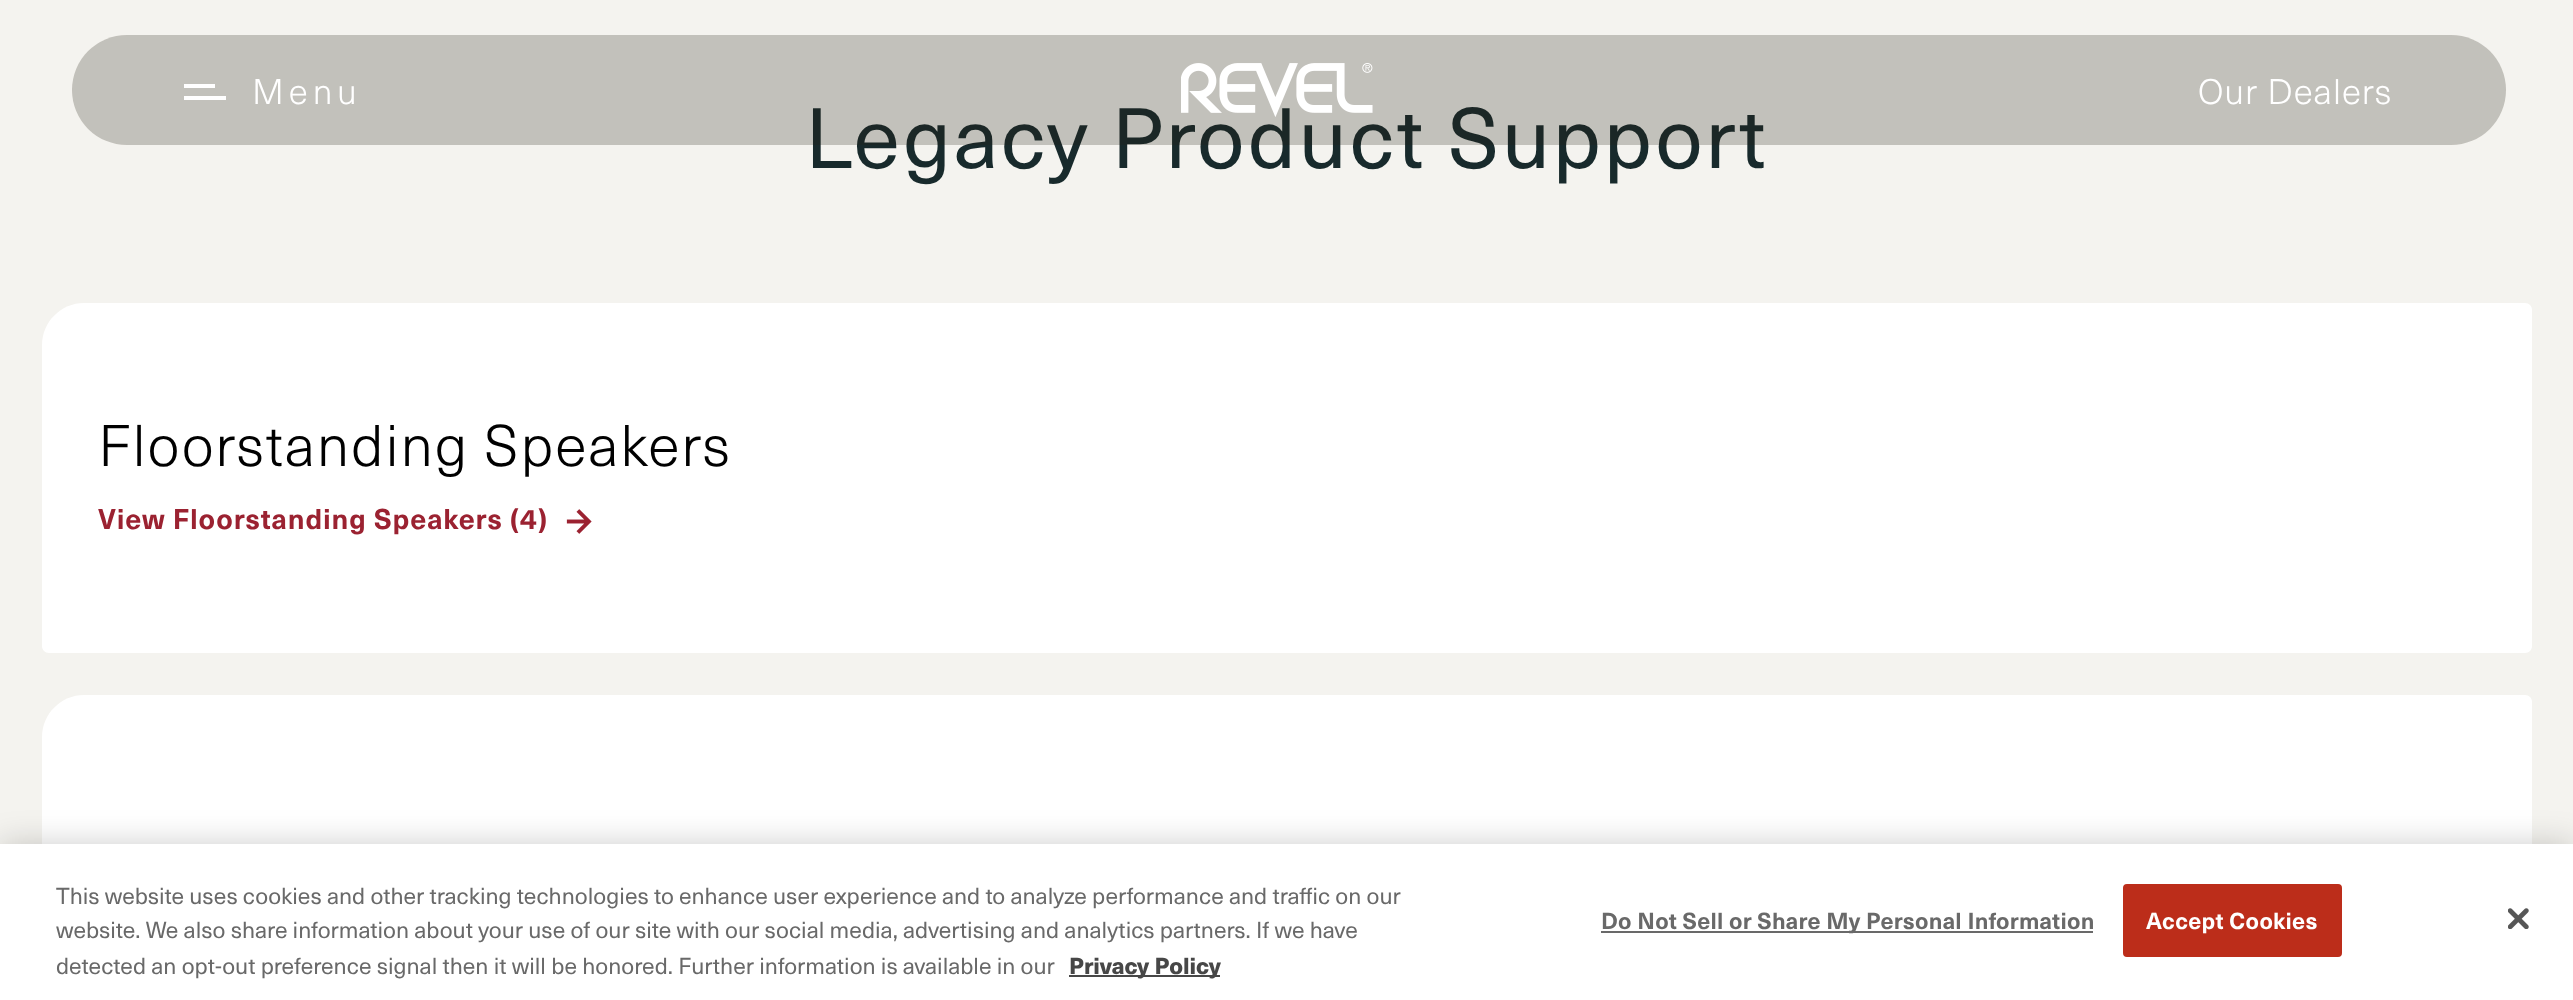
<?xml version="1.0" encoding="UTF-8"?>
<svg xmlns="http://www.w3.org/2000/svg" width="2573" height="1000">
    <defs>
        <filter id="blur1" x="-50%" y="-200%" width="200%" height="500%"><feGaussianBlur stdDeviation="16"/></filter>
    </defs>
    <rect width="100%" height="100%" fill="#F4F3EF"/>
    <text x="805" y="168" font-family="'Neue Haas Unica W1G'" font-size="84" letter-spacing="2.5" fill="#182A2C">Legacy Product Support</text>
    <rect x="72" y="35" width="2434" height="110" rx="55" fill="#272016" fill-opacity="0.24"/>
    <rect x="184" y="96" width="42" height="4" fill="#FFFFFF"/>
    <rect x="184" y="84" width="31" height="4" fill="#FFFFFF"/>
    <text x="252" y="104" font-family="'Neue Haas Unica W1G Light'" font-size="35" font-weight="300" letter-spacing="5" fill="#FFFFFF">Menu</text>
    <image x="1181" y="63" width="192" height="54" href="img_01.png"/>
    <text x="2198" y="104" font-family="'Neue Haas Unica W1G Light'" font-size="35" font-weight="300" letter-spacing="1" fill="#FFFFFF">Our Dealers</text>
    <path d="M 84 303 H 2525 C 2529 303 2532 306 2532 310 V 646 C 2532 650 2529 653 2525 653 H 49 C 45 653 42 650 42 646 V 345 C 42 322 61 303 84 303 Z" fill="#FFFFFF"/>
    <text x="98" y="466" font-family="'Neue Haas Unica W1G Light'" font-size="57.75" font-weight="300" letter-spacing="1.75" fill="#000000">Floorstanding Speakers</text>
    <text x="98" y="529" font-family="'Neue Haas Unica W1G'" font-size="28" font-weight="700" letter-spacing="0.85" fill="#9B2231">View Floorstanding Speakers (4)</text>
    <image x="566" y="509" width="26" height="25" href="img_02.png"/>
    <path d="M 84 695 H 2525 C 2529 695 2532 698 2532 702 V 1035 C 2532 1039 2529 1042 2525 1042 H 49 C 45 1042 42 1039 42 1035 V 737 C 42 714 61 695 84 695 Z" fill="#FFFFFF"/>
    <rect x="0" y="844" width="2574" height="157" fill="#000000" fill-opacity="0.2" filter="url(#blur1)"/>
    <rect x="0" y="844" width="2573" height="156" fill="#FFFFFF"/>
    <text font-family="'Neue Haas Unica W1G'" font-size="22.75" fill="#696969">
        <tspan x="56" y="904">This website uses cookies and other tracking technologies to enhance user experience and to analyze performance and traffic on our</tspan>
        <tspan x="56" y="938">website. We also share information about your use of our site with our social media, advertising and analytics partners. If we have</tspan>
        <tspan x="56" y="974">detected an opt-out preference signal then it will be honored. Further information is available in our</tspan>
    </text>
    <rect x="1069" y="975" width="151" height="2" fill="#474747"/>
    <text x="1069" y="974" font-family="'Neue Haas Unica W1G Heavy'" font-size="22.75" font-weight="900" fill="#474747">Privacy Policy</text>
    <rect x="1601" y="931" width="492" height="2" fill="#696969"/>
    <text x="1601" y="929" font-family="'Neue Haas Unica W1G'" font-size="22.75" font-weight="700" letter-spacing="0.25" fill="#696969">Do Not Sell or Share My Personal Information</text>
    <rect x="2124" y="885" width="217" height="71" rx="3" fill="#BC2D1A" stroke="#BC2D1A" stroke-width="2"/>
    <text x="2146" y="929" font-family="'Neue Haas Unica W1G'" font-size="22.75" font-weight="700" letter-spacing="0.25" fill="#FFFFFF">Accept Cookies</text>
    <image x="2508" y="908" width="21" height="21" href="img_03.png"/>
</svg>
